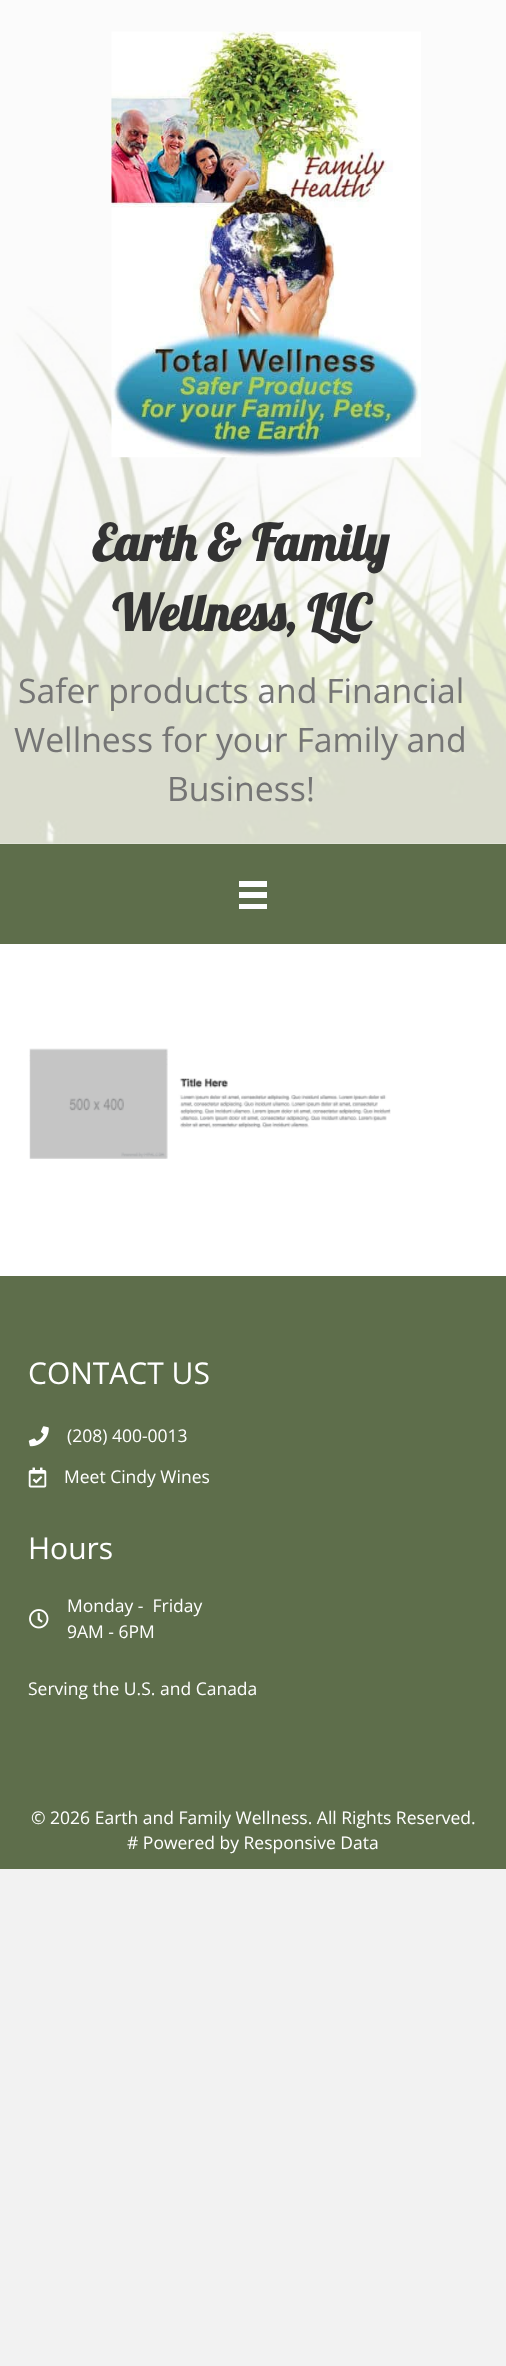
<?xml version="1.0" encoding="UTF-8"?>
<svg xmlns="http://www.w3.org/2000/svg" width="506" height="2366">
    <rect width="100%" height="100%" fill="#F2F2F2"/>
    <rect x="0" y="0" width="506" height="844" fill="#FBFBFB"/>
    <image x="0" y="306" width="506" height="538" href="img_01.png"/>
    <image x="111" y="31" width="310" height="427" href="img_02.png"/>
    <text x="92" y="561" font-family="Lobster" font-size="50" font-weight="700" fill="#333333">Earth &amp; Family</text>
    <text x="112" y="631" font-family="Lobster" font-size="50" font-weight="700" fill="#333333">Wellness, LLC</text>
    <text x="18" y="703" font-family="Open Sans" font-size="33.75" fill="#757575">Safer products and Financial</text>
    <text x="14" y="752" font-family="Open Sans" font-size="33.75" fill="#757575">Wellness for your Family and</text>
    <text x="167" y="801" font-family="Open Sans" font-size="33.75" fill="#757575">Business!</text>
    <rect x="0" y="844" width="506" height="100" fill="#5E6E4B"/>
    <rect x="239" y="881" width="28" height="6" fill="#FFFFFF"/>
    <rect x="239" y="892" width="28" height="6" fill="#FFFFFF"/>
    <rect x="239" y="904" width="28" height="5" fill="#FFFFFF"/>
    <rect x="0" y="944" width="506" height="332" fill="#FFFFFF"/>
    <image x="29" y="1048" width="362" height="111" href="img_03.png"/>
    <rect x="0" y="1276" width="506" height="593" fill="#5E6E4B"/>
    <text x="28" y="1384" font-family="Open Sans" font-size="30" fill="#FFFFFF">CONTACT US</text>
    <image x="28" y="1426" width="21" height="21" href="img_04.png"/>
    <text x="67" y="1442" font-family="Open Sans" font-size="17.5" fill="#FFFFFF">(208) 400-0013</text>
    <image x="28" y="1467" width="19" height="21" href="img_05.png"/>
    <text x="64" y="1483" font-family="Open Sans" font-size="17.5" fill="#FFFFFF">Meet Cindy Wines</text>
    <text x="28" y="1559" font-family="Open Sans" font-size="30" fill="#FFFFFF">Hours</text>
    <image x="29" y="1609" width="20" height="20" href="img_06.png"/>
    <text font-family="Open Sans" font-size="17.5" fill="#FFFFFF" xml:space="preserve"><tspan x="67" y="1612">Monday -  Friday</tspan><tspan x="67" y="1638">9AM - 6PM</tspan></text>
    <text x="28" y="1695" font-family="Open Sans" font-size="17.5" fill="#FFFFFF">Serving the U.S. and Canada</text>
    <text x="31" y="1824" font-family="Open Sans" font-size="17.5" fill="#FFFFFF">© 2026 Earth and Family Wellness. All Rights Reserved.</text>
    <text x="127" y="1849" font-family="Open Sans" font-size="17.5" fill="#FFFFFF"># Powered by Responsive Data</text>
</svg>
